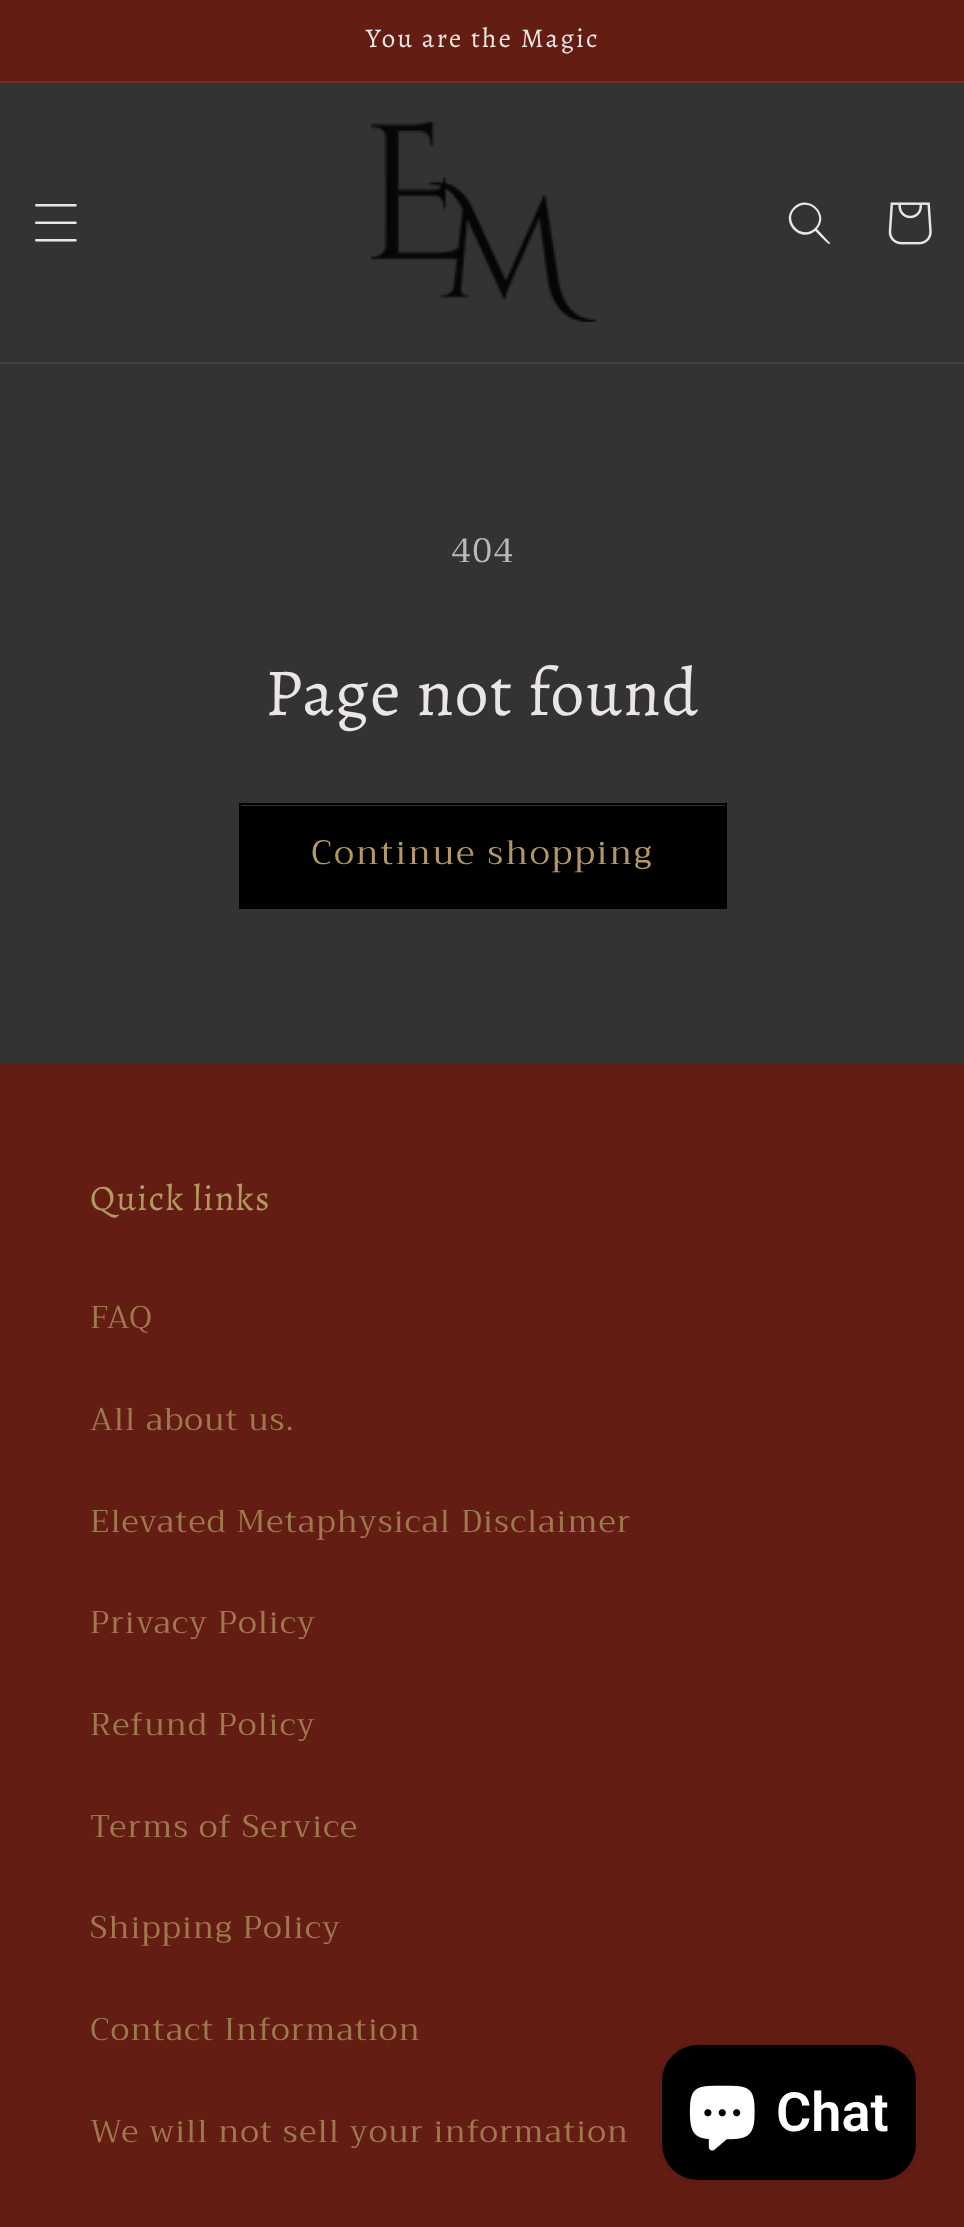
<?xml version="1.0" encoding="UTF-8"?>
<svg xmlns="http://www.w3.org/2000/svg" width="964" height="2227">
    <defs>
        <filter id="blur1" x="-50%" y="-200%" width="200%" height="500%"><feGaussianBlur stdDeviation="5.5"/></filter>
    </defs>
    <rect width="100%" height="100%" fill="#333333"/>
    <rect x="0" y="0" width="964" height="81" fill="#641D13"/>
    <rect x="0" y="81" width="964" height="2" fill="#6F2D24"/>
    <text x="366" y="47" font-family="Alegreya" font-size="27" letter-spacing="2.25" fill="#EBE6E4">You are the Magic</text>
    <rect x="0" y="362" width="964" height="2" fill="#424141"/>
    <image x="35" y="204" width="42" height="38" href="img_01.png"/>
    <image x="371" y="121" width="226" height="201" href="img_02.png"/>
    <path d="M 815 228 C 802 241 783 221 795 209 C 808 196 828 215 815 228 Z M 815 231 C 800 244 779 221 794 207 C 808 193 831 214 817 229 L 830 243 V 244 C 828 245 817 232 815 231 Z" fill="#EBE6E4" fill-rule="evenodd"/>
    <image x="888" y="202" width="44" height="43" href="img_03.png"/>
    <text x="451" y="562" font-family="Trirong" font-size="33.75" letter-spacing="1.35" fill="#BDB9B8">404</text>
    <text x="265" y="715" font-family="Alegreya" font-size="67.5" letter-spacing="1.35" fill="#EBE6E4">Page not found</text>
    <rect x="240" y="804" width="486" height="104" fill="none" stroke="#000000" stroke-width="2"/>
    <rect x="241" y="806" width="484" height="101" fill="#000000"/>
    <text x="311" y="864" font-family="Trirong" font-size="33.75" letter-spacing="2.25" fill="#B39861">Continue shopping</text>
    <rect x="0" y="1064" width="964" height="1163" fill="#641D13"/>
    <text x="90" y="1210" font-family="Alegreya" font-size="36" letter-spacing="1.35" fill="#B39861">Quick links</text>
    <text x="90" y="1328" font-family="Trirong" font-size="31.5" letter-spacing="1.35" fill="#9F794E">FAQ</text>
    <text x="90" y="1430" font-family="Trirong" font-size="31.5" letter-spacing="1.35" fill="#9F794E">All about us.</text>
    <text x="90" y="1532" font-family="Trirong" font-size="31.5" letter-spacing="1.35" fill="#9F794E">Elevated Metaphysical Disclaimer</text>
    <text x="90" y="1633" font-family="Trirong" font-size="31.5" letter-spacing="1.35" fill="#9F794E">Privacy Policy</text>
    <text x="90" y="1735" font-family="Trirong" font-size="31.5" letter-spacing="1.35" fill="#9F794E">Refund Policy</text>
    <text x="90" y="1837" font-family="Trirong" font-size="31.5" letter-spacing="1.35" fill="#9F794E">Terms of Service</text>
    <text x="90" y="1938" font-family="Trirong" font-size="31.5" letter-spacing="1.35" fill="#9F794E">Shipping Policy</text>
    <text x="90" y="2040" font-family="Trirong" font-size="31.5" letter-spacing="1.35" fill="#9F794E">Contact Information</text>
    <text x="90" y="2142" font-family="Trirong" font-size="31.5" letter-spacing="1.35" fill="#9F794E">We will not sell your information</text>
    <rect x="662" y="2045" width="254" height="135" rx="36" fill="#000000" fill-opacity="0.15" filter="url(#blur1)"/>
    <rect x="662" y="2045" width="254" height="135" rx="36" fill="#000000"/>
    <image x="689" y="2085" width="66" height="66" href="img_04.png"/>
    <text x="776" y="2131" font-family="Roboto" font-size="54" font-weight="600" fill="#FFFFFF">Chat</text>
</svg>
